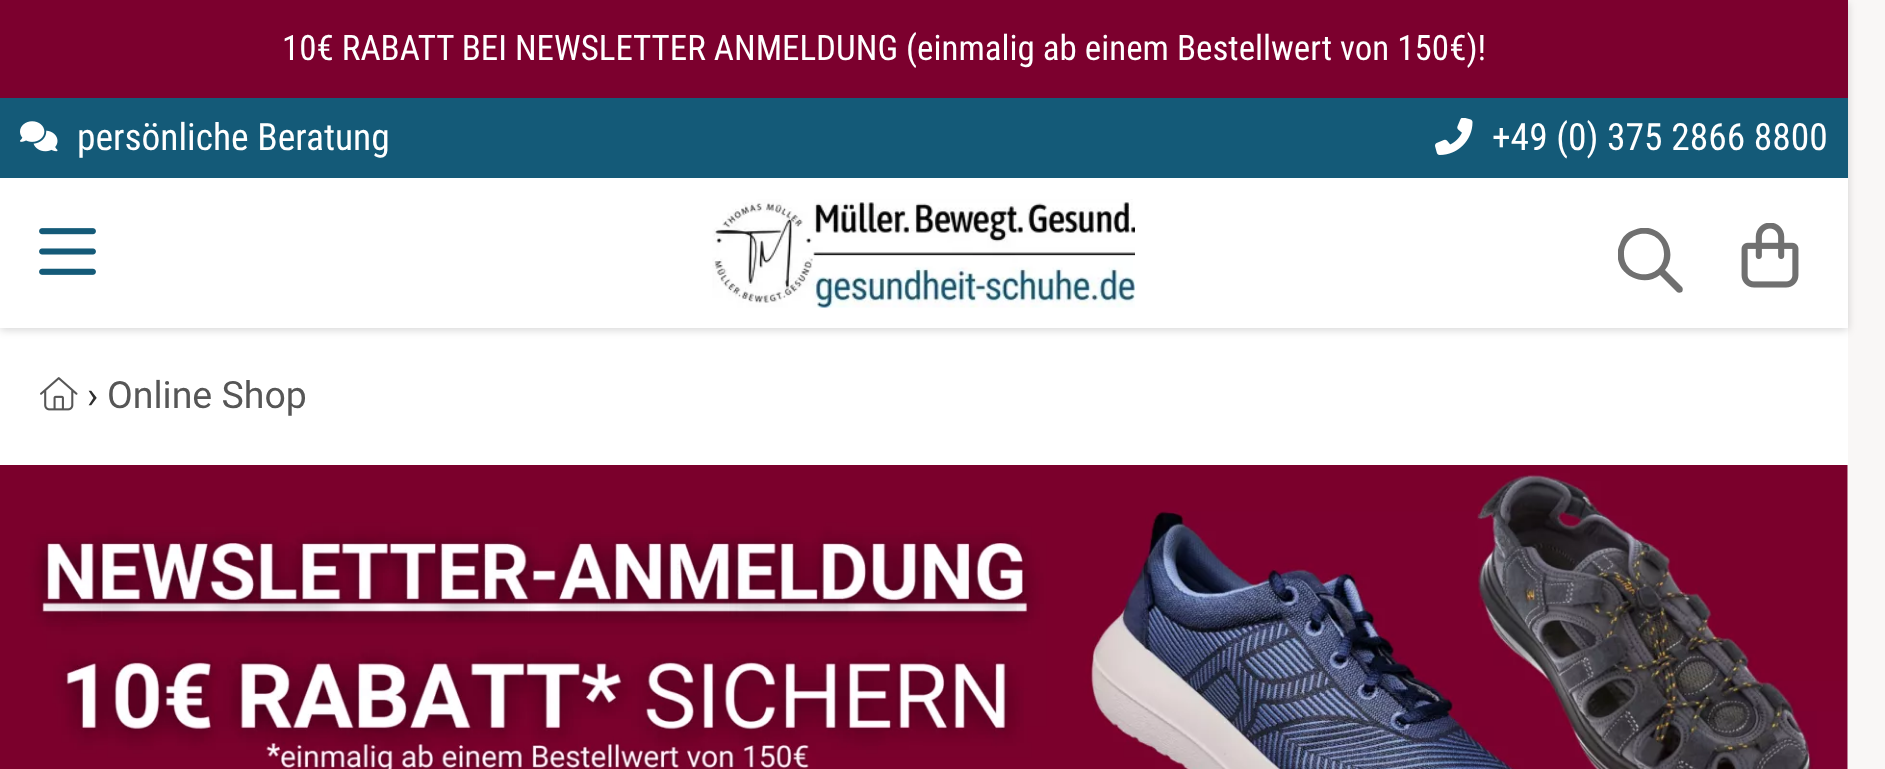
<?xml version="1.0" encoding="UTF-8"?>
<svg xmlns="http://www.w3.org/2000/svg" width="1885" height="769">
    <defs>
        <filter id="blur1" x="-50%" y="-200%" width="200%" height="500%"><feGaussianBlur stdDeviation="4"/></filter>
        <clipPath id="clip1"><rect x="1618" y="228" width="65" height="65"/></clipPath>
    </defs>
    <rect width="100%" height="100%" fill="#F9F7F6"/>
    <rect x="0" y="328" width="1848" height="137" fill="#FFFFFF"/>
    <rect x="0" y="3" width="1848" height="327" fill="#000000" fill-opacity="0.16" filter="url(#blur1)"/>
    <rect x="0" y="0" width="1848" height="98" fill="#7C002E"/>
    <text x="282" y="60" font-family="Roboto Condensed" font-size="35" fill="#FFFFFF">10€ RABATT BEI NEWSLETTER ANMELDUNG (einmalig ab einem Bestellwert von 150€)!</text>
    <rect x="0" y="98" width="1848" height="80" fill="#145A78"/>
    <image x="20" y="121" width="38" height="31" href="img_01.png"/>
    <text x="77" y="150" font-family="Roboto Condensed" font-size="37.5" fill="#FFFFFF">persönliche Beratung</text>
    <image x="1435" y="118" width="38" height="37" href="img_02.png"/>
    <text x="1492" y="150" font-family="Roboto Condensed" font-size="37.5" fill="#FFFFFF">+49 (0) 375 2866 8800</text>
    <rect x="0" y="178" width="1848" height="150" fill="#FFFFFF"/>
    <image x="39" y="228" width="57" height="47" href="img_03.png"/>
    <image x="712" y="199" width="423" height="109" href="img_04.png"/>
    <g clip-path="url(#clip1)">
        <path d="M 1664 254 C 1664 227 1624 227 1624 254 C 1624 281 1664 281 1664 254 Z M 1660 275 C 1649 284 1631 281 1622 269 C 1617 261 1616 252 1620 244 C 1622 237 1627 232 1634 230 C 1659 219 1681 250 1665 270 L 1682 287 C 1683 288 1683 290 1682 292 C 1680 293 1678 293 1677 292 Z" fill="#707070"/>
    </g>
    <image x="1741" y="223" width="58" height="65" href="img_05.png"/>
    <image x="40" y="377" width="38" height="34" href="img_06.png"/>
    <text x="87" y="408" font-family="Roboto" font-size="37.5" fill="#2E2E2E">›</text>
    <text x="107" y="408" font-family="Roboto" font-size="37.5" fill="#565656">Online Shop</text>
    <rect x="1847" y="465" width="1" height="304" fill="#FFFFFF"/>
    <image x="0" y="465" width="1848" height="304" href="img_07.png"/>
</svg>
